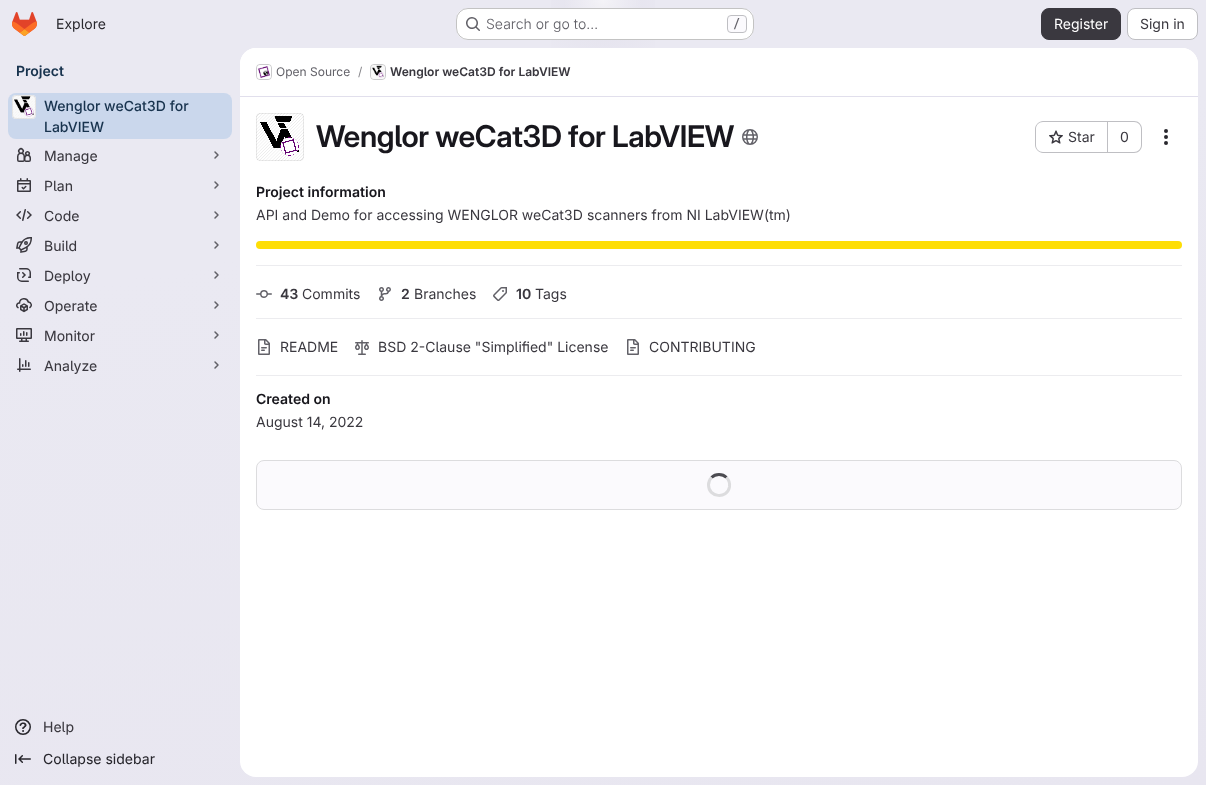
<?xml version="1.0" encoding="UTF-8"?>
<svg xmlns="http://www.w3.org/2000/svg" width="1206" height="785">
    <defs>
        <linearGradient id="g1" gradientUnits="userSpaceOnUse" x1="688" y1="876" x2="518" y2="-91"><stop offset="0" stop-color="#E8E6F0"/><stop offset="0.7" stop-color="#EAE9F2"/></linearGradient>
        <radialGradient id="g2" gradientUnits="userSpaceOnUse" cx="0" cy="0" r="1" gradientTransform="matrix(603 0 0 785 603 0)"><stop offset="0" stop-color="#E4E2ED"/><stop offset="0.12" stop-color="#E4E2ED" stop-opacity="0"/></radialGradient>
        <radialGradient id="g3" gradientUnits="userSpaceOnUse" cx="0" cy="0" r="1" gradientTransform="matrix(603 0 0 785 603 0)"><stop offset="0" stop-color="#E4E2EC"/><stop offset="0.08" stop-color="#E4E2EC" stop-opacity="0"/></radialGradient>
        <radialGradient id="g4" gradientUnits="userSpaceOnUse" cx="603" cy="0" r="990"><stop offset="0" stop-color="#FFFFFF" stop-opacity="0.6"/><stop offset="0.04" stop-color="#FFFFFF" stop-opacity="0"/></radialGradient>
    </defs>
    <rect width="100%" height="100%" fill="#FFFFFF"/>
    <rect x="0" y="0" width="1206" height="785" fill="url(#g1)"/>
    <rect x="551" y="0" width="104" height="48" fill="url(#g2)"/>
    <rect x="593" y="3" width="19" height="4" fill="url(#g3)"/>
    <rect x="565" y="0" width="76" height="8" fill="url(#g4)"/>
    <image x="12" y="12" width="25" height="24" href="img_01.png"/>
    <text x="56" y="29" font-family="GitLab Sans" font-size="14" fill="#28272D">Explore</text>
    <rect x="456" y="8" width="298" height="32" rx="12" fill="#FFFFFF"/>
    <rect x="456.5" y="8.5" width="297" height="31" rx="11.5" fill="none" stroke="#050506" stroke-opacity="0.24"/>
    <image x="466" y="17" width="14" height="14" href="img_02.png"/>
    <text x="486" y="29" font-family="GitLab Sans" font-size="14" font-weight="300" fill="#626168">Search or go to…</text>
    <rect x="727.5" y="15.5" width="19" height="17" rx="3.5" fill="#FBFAFD" stroke="#BFBFC3"/>
    <text x="733" y="28" font-family="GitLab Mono" font-size="12" font-weight="500" fill="#626168">/</text>
    <rect x="1041.5" y="8.5" width="79" height="31" rx="7.5" fill="#3A383F" stroke="#3A383F"/>
    <text x="1054" y="29" font-family="GitLab Sans" font-size="14" fill="#FFFFFF">Register</text>
    <rect x="1127.5" y="8.5" width="70" height="31" rx="7.5" fill="#FFFFFF" stroke="#BFBFC3"/>
    <text x="1140" y="29" font-family="GitLab Sans" font-size="14" fill="#3A383F">Sign in</text>
    <text x="16" y="76" font-family="'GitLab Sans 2'" font-size="14" font-weight="600" fill="#18334E">Project</text>
    <rect x="8" y="93" width="224" height="46" rx="8" fill="#CAD7EC"/>
    <image x="12" y="95" width="24" height="24" href="img_03.png"/>
    <rect x="12.5" y="95.5" width="23" height="23" rx="3.5" fill="none" stroke="#050506" stroke-opacity="0.08"/>
    <text font-family="GitLab Sans" font-size="14" font-weight="500" fill="#18334E">
        <tspan x="44" y="111">Wenglor weCat3D for</tspan>
        <tspan x="44" y="132">LabVIEW</tspan>
    </text>
    <image x="17" y="147" width="14" height="15" href="img_04.png"/>
    <text x="44" y="161" font-family="'GitLab Sans 2'" font-size="14" fill="#3A383F">Manage</text>
    <path d="M 215 152 L 218 155 L 215 158" fill="none" stroke="#626168" stroke-width="1.5" stroke-linecap="round" stroke-linejoin="round"/>
    <image x="17" y="178" width="14" height="14" href="img_05.png"/>
    <text x="44" y="191" font-family="'GitLab Sans 2'" font-size="14" fill="#3A383F">Plan</text>
    <path d="M 215 182 L 218 185 L 215 188" fill="none" stroke="#626168" stroke-width="1.5" stroke-linecap="round" stroke-linejoin="round"/>
    <image x="16" y="209" width="16" height="12" href="img_06.png"/>
    <text x="44" y="221" font-family="'GitLab Sans 2'" font-size="14" fill="#3A383F">Code</text>
    <path d="M 215 212 L 218 215 L 215 218" fill="none" stroke="#626168" stroke-width="1.5" stroke-linecap="round" stroke-linejoin="round"/>
    <image x="16" y="237" width="16" height="16" href="img_07.png"/>
    <text x="44" y="251" font-family="'GitLab Sans 2'" font-size="14" fill="#3A383F">Build</text>
    <path d="M 215 242 L 218 245 L 215 248" fill="none" stroke="#626168" stroke-width="1.5" stroke-linecap="round" stroke-linejoin="round"/>
    <image x="17" y="268" width="14" height="14" href="img_08.png"/>
    <text x="44" y="281" font-family="'GitLab Sans 2'" font-size="14" fill="#3A383F">Deploy</text>
    <path d="M 215 272 L 218 275 L 215 278" fill="none" stroke="#626168" stroke-width="1.5" stroke-linecap="round" stroke-linejoin="round"/>
    <image x="16" y="298" width="16" height="15" href="img_09.png"/>
    <text x="44" y="311" font-family="'GitLab Sans 2'" font-size="14" fill="#3A383F">Operate</text>
    <path d="M 215 302 L 218 305 L 215 308" fill="none" stroke="#626168" stroke-width="1.5" stroke-linecap="round" stroke-linejoin="round"/>
    <image x="16" y="328" width="16" height="14" href="img_10.png"/>
    <text x="44" y="341" font-family="'GitLab Sans 2'" font-size="14" fill="#3A383F">Monitor</text>
    <path d="M 215 332 L 218 335 L 215 338" fill="none" stroke="#626168" stroke-width="1.5" stroke-linecap="round" stroke-linejoin="round"/>
    <image x="17" y="358" width="14" height="14" href="img_11.png"/>
    <text x="44" y="371" font-family="'GitLab Sans 2'" font-size="14" fill="#3A383F">Analyze</text>
    <path d="M 215 362 L 218 365 L 215 368" fill="none" stroke="#626168" stroke-width="1.5" stroke-linecap="round" stroke-linejoin="round"/>
    <image x="15" y="719" width="16" height="16" href="img_12.png"/>
    <text x="43" y="732" font-family="'GitLab Sans 2'" font-size="14" fill="#3A383F">Help</text>
    <image x="15" y="754" width="16" height="10" href="img_13.png"/>
    <text x="43" y="764" font-family="'GitLab Sans 2'" font-size="14" fill="#28272D">Collapse sidebar</text>
    <rect x="240" y="48" width="958" height="729" rx="16" fill="#FFFFFF"/>
    <path d="M 256 48 H 1182 C 1191 48 1198 55 1198 64 V 97 H 240 V 64 C 240 55 247 48 256 48 Z" fill="#FFFFFF"/>
    <rect x="240" y="96" width="958" height="1" fill="#E1DFEC"/>
    <rect x="256.5" y="64.5" width="15" height="15" rx="3.5" fill="none" stroke="#DCDCDE"/>
    <image x="257" y="65" width="14" height="14" href="img_14.png"/>
    <rect x="256.5" y="64.5" width="15" height="15" rx="3.5" fill="none" stroke="#050506" stroke-opacity="0.08"/>
    <text x="276" y="76" font-family="GitLab Sans" font-size="12" fill="#626168">Open Source</text>
    <text x="358" y="76" font-family="GitLab Sans" font-size="12" fill="#89888D">/</text>
    <rect x="370.5" y="64.5" width="15" height="15" rx="3.5" fill="none" stroke="#DCDCDE"/>
    <image x="371" y="65" width="14" height="14" href="img_15.png"/>
    <rect x="370.5" y="64.5" width="15" height="15" rx="3.5" fill="none" stroke="#050506" stroke-opacity="0.08"/>
    <text x="390" y="76" font-family="'GitLab Sans 2'" font-size="12" font-weight="600" fill="#3A383F">Wenglor weCat3D for LabVIEW</text>
    <image x="256" y="113" width="48" height="48" href="img_16.png"/>
    <rect x="256.5" y="113.5" width="47" height="47" rx="3.5" fill="none" stroke="#050506" stroke-opacity="0.08"/>
    <text x="316" y="147" font-family="GitLab Sans" font-size="30" font-weight="600" letter-spacing="-0.3" fill="#18171D">Wenglor weCat3D for LabVIEW</text>
    <image x="742" y="129" width="16" height="16" href="img_17.png"/>
    <path d="M 1043 121 H 1107 V 153 H 1043 C 1039 153 1035 149 1035 145 V 129 C 1035 125 1039 121 1043 121 Z M 1043 122 H 1107 V 152 H 1043 C 1039 152 1036 149 1036 145 V 129 C 1036 125 1039 122 1043 122 Z" fill="#BFBFC3" fill-rule="evenodd"/>
    <image x="1049" y="130" width="14" height="14" href="img_18.png"/>
    <text x="1068" y="142" font-family="GitLab Sans" font-size="14" fill="#3A383F">Star</text>
    <path d="M 1108 121 H 1134 C 1138.5 121 1142 124.5 1142 129 V 145 C 1142 149.5 1138.5 153 1134 153 H 1108 Z M 1108 122 H 1134 C 1138 122 1141 125 1141 129 V 145 C 1141 149 1138 152 1134 152 H 1108 Z" fill="#BFBFC3" fill-rule="evenodd"/>
    <rect x="1107" y="121" width="1" height="32" fill="#BFBFC3"/>
    <text x="1120" y="142" font-family="GitLab Sans" font-size="14" fill="#3A383F">0</text>
    <image x="1164" y="129" width="4" height="16" href="img_19.png"/>
    <rect x="256" y="265" width="926" height="1" fill="#ECECEF"/>
    <text x="256" y="197" font-family="'GitLab Sans 2'" font-size="14" font-weight="600" fill="#18171D">Project information</text>
    <text x="256" y="220" font-family="GitLab Sans" font-size="14" fill="#3A383F">API and Demo for accessing WENGLOR weCat3D scanners from NI LabVIEW(tm)</text>
    <rect x="256" y="241" width="926" height="8" rx="4" fill="#FEDE06"/>
    <rect x="256" y="318" width="926" height="1" fill="#ECECEF"/>
    <image x="256" y="290" width="16" height="8" href="img_20.png"/>
    <text x="280" y="299" font-family="'GitLab Sans 2'" font-size="14" font-weight="600" fill="#3A383F">43</text>
    <text x="302" y="299" font-family="GitLab Sans" font-size="14" fill="#3A383F">Commits</text>
    <image x="379" y="287" width="12" height="14" href="img_21.png"/>
    <text x="401" y="299" font-family="'GitLab Sans 2'" font-size="14" font-weight="600" fill="#3A383F">2</text>
    <text x="414" y="299" font-family="GitLab Sans" font-size="14" fill="#3A383F">Branches</text>
    <image x="493" y="287" width="14" height="14" href="img_22.png"/>
    <text x="516" y="299" font-family="'GitLab Sans 2'" font-size="14" font-weight="600" fill="#3A383F">10</text>
    <text x="535" y="299" font-family="GitLab Sans" font-size="14" fill="#3A383F">Tags</text>
    <rect x="256" y="375" width="926" height="1" fill="#ECECEF"/>
    <image x="258" y="339" width="12" height="16" href="img_23.png"/>
    <text x="280" y="352" font-family="GitLab Sans" font-size="14" fill="#3A383F">README</text>
    <image x="355" y="340" width="14" height="15" href="img_24.png"/>
    <text x="378" y="352" font-family="GitLab Sans" font-size="14" fill="#3A383F">BSD 2-Clause "Simplified" License</text>
    <image x="627" y="339" width="12" height="16" href="img_23.png"/>
    <text x="649" y="352" font-family="GitLab Sans" font-size="14" fill="#3A383F">CONTRIBUTING</text>
    <text x="256" y="404" font-family="'GitLab Sans 2'" font-size="14" font-weight="600" fill="#18171D">Created on</text>
    <text x="256" y="427" font-family="GitLab Sans" font-size="14" fill="#3A383F">August 14, 2022</text>
    <rect x="256.5" y="460.5" width="925" height="49" rx="7.5" fill="#FBFAFD" stroke="#DCDCDE"/>
    <path d="M 711.5 477.5 C 715.5 473.5 722.5 473.5 726.5 477.5" fill="none" stroke="#4C4B51" stroke-width="3"/>
    <path d="M 726.5 477.5 C 729 480 730 483.5 729.5 487 C 727 499.5 708.5 497.5 708.5 485 C 708.5 482 709.5 479.5 711.5 477.5" fill="none" stroke="#DCDCDE" stroke-width="3"/>
</svg>
